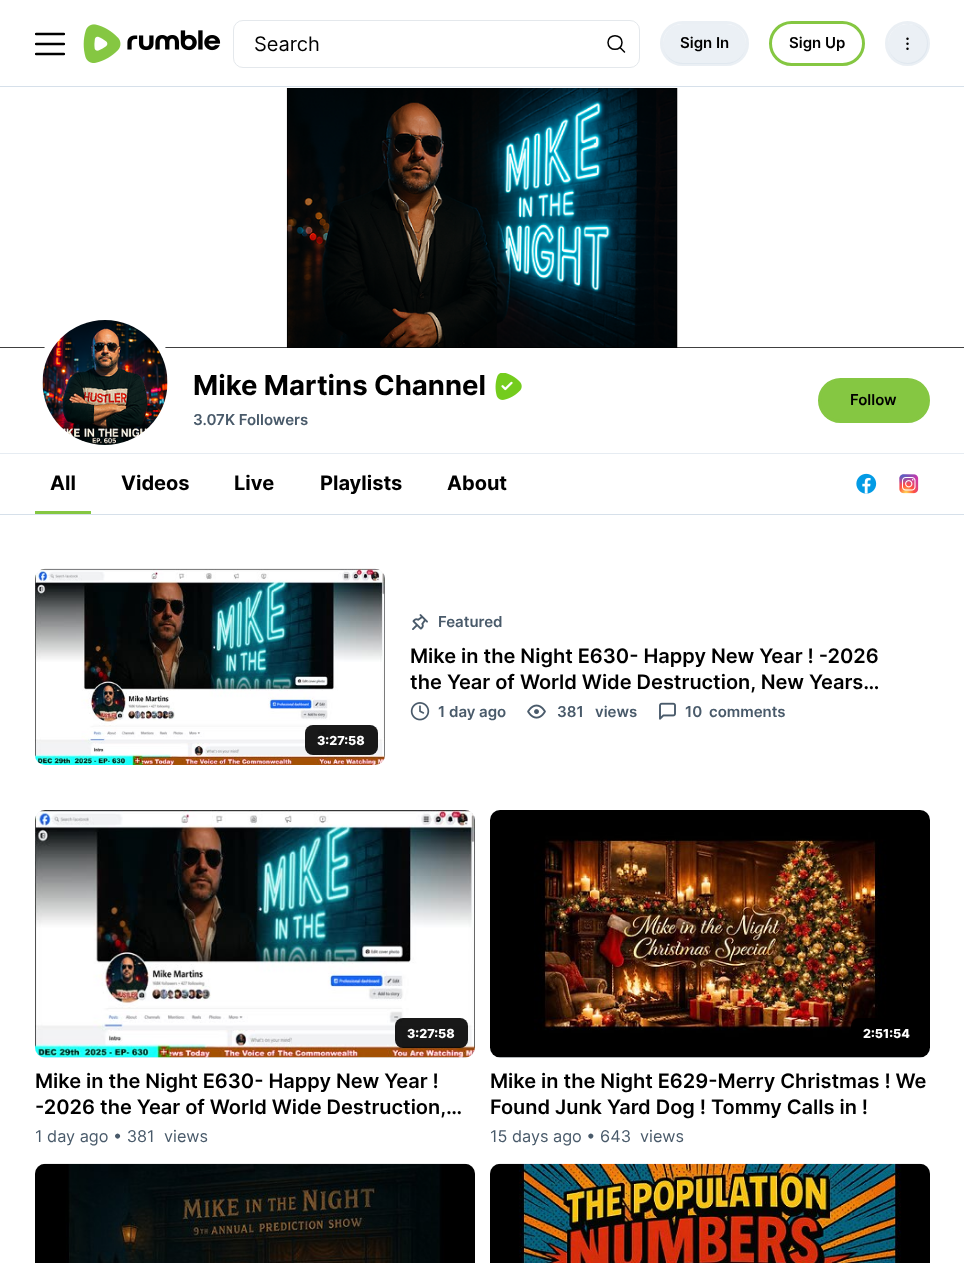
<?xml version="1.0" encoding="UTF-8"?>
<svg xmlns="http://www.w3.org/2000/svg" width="964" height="1263">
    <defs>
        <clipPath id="clip1"><rect x="35" y="29" width="30" height="30"/></clipPath>
    </defs>
    <rect width="100%" height="100%" fill="#FFFFFF"/>
    <rect x="0" y="86" width="964" height="1" fill="#D6E0EA"/>
    <g clip-path="url(#clip1)">
        <path d="M 36 34 H 64 M 36 44 H 64 M 36 54 H 64" fill="none" stroke="#000000" stroke-width="2.5" stroke-linecap="round" stroke-linejoin="round"/>
    </g>
    <image x="83" y="24" width="38" height="39" href="img_01.png"/>
    <image x="127" y="30" width="94" height="21" href="img_02.png"/>
    <rect x="233.5" y="20.5" width="406" height="47" rx="9.5" fill="none" stroke="#E4E8EC"/>
    <text x="254" y="51" font-family="Inter" font-size="20" fill="#000000">Search</text>
    <path d="M 620 47.5 L 624.5 52 M 608 42.5 C 608 51.5 622 51.5 622 42.5 C 622 33.5 608 33.5 608 42.5" fill="none" stroke="#000000" stroke-width="1.5" stroke-linecap="round"/>
    <rect x="663" y="24" width="83" height="40" rx="20" fill="#EBF0F5"/>
    <rect x="661.5" y="22.5" width="86" height="42" rx="21" fill="none" stroke="#D6E0EA" stroke-opacity="0.5" stroke-width="3"/>
    <text x="680" y="48" font-family="Inter" font-size="15" font-weight="600" fill="#000000">Sign In</text>
    <rect x="770.5" y="22.5" width="93" height="42" rx="21" fill="none" stroke="#85C742" stroke-width="3"/>
    <text x="789" y="48" font-family="Inter" font-size="15" font-weight="600" fill="#000000">Sign Up</text>
    <circle cx="908" cy="44" r="20" fill="#EBF0F5"/>
    <circle cx="907.5" cy="43.5" r="21" fill="none" stroke="#D6E0EA" stroke-opacity="0.5" stroke-width="3"/>
    <image x="906" y="37" width="3" height="13" href="img_03.png"/>
    <rect x="0" y="347" width="964" height="1" fill="#000000"/>
    <image x="0" y="88" width="964" height="260" href="img_04.png"/>
    <circle cx="105" cy="383" r="66" fill="none" stroke="#FFFFFF" stroke-width="8"/>
    <image x="42" y="320" width="126" height="125" href="img_05.png"/>
    <text x="193" y="395" font-family="Inter" font-size="27.5" font-weight="700" fill="#000000">Mike Martins Channel</text>
    <image x="495" y="373" width="27" height="27" href="img_06.png"/>
    <text x="193" y="425" font-family="Inter" font-size="15" font-weight="600" fill="#495A6A">3.07K Followers</text>
    <rect x="819.5" y="379.5" width="109" height="42" rx="21" fill="#85C742" stroke="#85C742" stroke-width="3"/>
    <text x="850" y="405" font-family="Inter" font-size="15" font-weight="600" fill="#000000">Follow</text>
    <rect x="0" y="514" width="964" height="1" fill="#D6E0EA"/>
    <rect x="0" y="453" width="964" height="1" fill="#E6ECF2"/>
    <rect x="35" y="511" width="56" height="3" fill="#85C742"/>
    <text x="50" y="490" font-family="Inter" font-size="20" font-weight="700" fill="#000000">All</text>
    <text x="121" y="490" font-family="Inter" font-size="20" font-weight="700" fill="#000000">Videos</text>
    <text x="234" y="490" font-family="Inter" font-size="20" font-weight="700" fill="#000000">Live</text>
    <text x="320" y="490" font-family="Inter" font-size="20" font-weight="700" fill="#000000">Playlists</text>
    <text x="447" y="490" font-family="Inter" font-size="20" font-weight="700" fill="#000000">About</text>
    <image x="856" y="473" width="21" height="21" href="img_07.png"/>
    <image x="899" y="474" width="20" height="20" href="img_08.png"/>
    <image x="412" y="614" width="16" height="16" href="img_09.png"/>
    <text x="438" y="627" font-family="Inter" font-size="15" font-weight="600" fill="#495A6A">Featured</text>
    <text font-family="Inter" font-size="20" font-weight="600" fill="#000000">
        <tspan x="410" y="663">Mike in the Night E630- Happy New Year ! -2026</tspan>
        <tspan x="410" y="689">the Year of World Wide Destruction, New Years…</tspan>
    </text>
    <image x="410" y="702" width="20" height="19" href="img_10.png"/>
    <text x="438" y="717" font-family="Inter" font-size="15" font-weight="600" fill="#495A6A">1 day ago</text>
    <image x="527" y="704" width="19" height="15" href="img_11.png"/>
    <text x="557" y="717" font-family="Inter" font-size="15" font-weight="600" fill="#495A6A">381</text>
    <text x="595" y="717" font-family="Inter" font-size="15" font-weight="600" fill="#495A6A">views</text>
    <image x="659" y="702" width="17" height="18" href="img_12.png"/>
    <text x="685" y="717" font-family="Inter" font-size="15" font-weight="600" fill="#495A6A">10</text>
    <text x="709" y="717" font-family="Inter" font-size="15" font-weight="600" fill="#495A6A">comments</text>
    <rect x="35" y="569" width="350" height="196" rx="10" fill="#EBF0F5"/>
    <image x="35" y="568" width="350" height="197" href="img_13.png"/>
    <rect x="305" y="725" width="73" height="30" rx="8" fill="#000000" fill-opacity="0.9"/>
    <text x="317" y="745" font-family="Inter" font-size="12.5" font-weight="800" fill="#FFFFFF">3:27:58</text>
    <rect x="35" y="810" width="440" height="248" rx="10" fill="#EBF0F5"/>
    <image x="35" y="810" width="440" height="248" href="img_14.png"/>
    <rect x="395" y="1018" width="73" height="30" rx="8" fill="#000000" fill-opacity="0.9"/>
    <text x="407" y="1038" font-family="Inter" font-size="12.5" font-weight="800" fill="#FFFFFF">3:27:58</text>
    <text font-family="Inter" font-size="20" font-weight="600" fill="#000000">
        <tspan x="35" y="1088">Mike in the Night E630- Happy New Year !</tspan>
        <tspan x="35" y="1114">-2026 the Year of World Wide Destruction,…</tspan>
    </text>
    <text x="35" y="1142" font-family="Inter" font-size="16.25" fill="#495A6A">1 day ago • 381</text>
    <text x="164" y="1142" font-family="Inter" font-size="16.25" fill="#495A6A">views</text>
    <rect x="490" y="810" width="440" height="248" rx="10" fill="#EBF0F5"/>
    <image x="490" y="810" width="440" height="248" href="img_15.png"/>
    <rect x="851" y="1018" width="72" height="30" rx="8" fill="#000000" fill-opacity="0.9"/>
    <text x="863" y="1038" font-family="Inter" font-size="12.5" font-weight="800" fill="#FFFFFF">2:51:54</text>
    <text font-family="Inter" font-size="20" font-weight="600" fill="#000000">
        <tspan x="490" y="1088">Mike in the Night E629-Merry Christmas ! We</tspan>
        <tspan x="490" y="1114">Found Junk Yard Dog ! Tommy Calls in !</tspan>
    </text>
    <text x="490" y="1142" font-family="Inter" font-size="16.25" fill="#495A6A">15 days ago • 643</text>
    <text x="640" y="1142" font-family="Inter" font-size="16.25" fill="#495A6A">views</text>
    <image x="35" y="1163" width="440" height="100" href="img_16.png"/>
    <image x="490" y="1163" width="440" height="100" href="img_17.png"/>
</svg>
